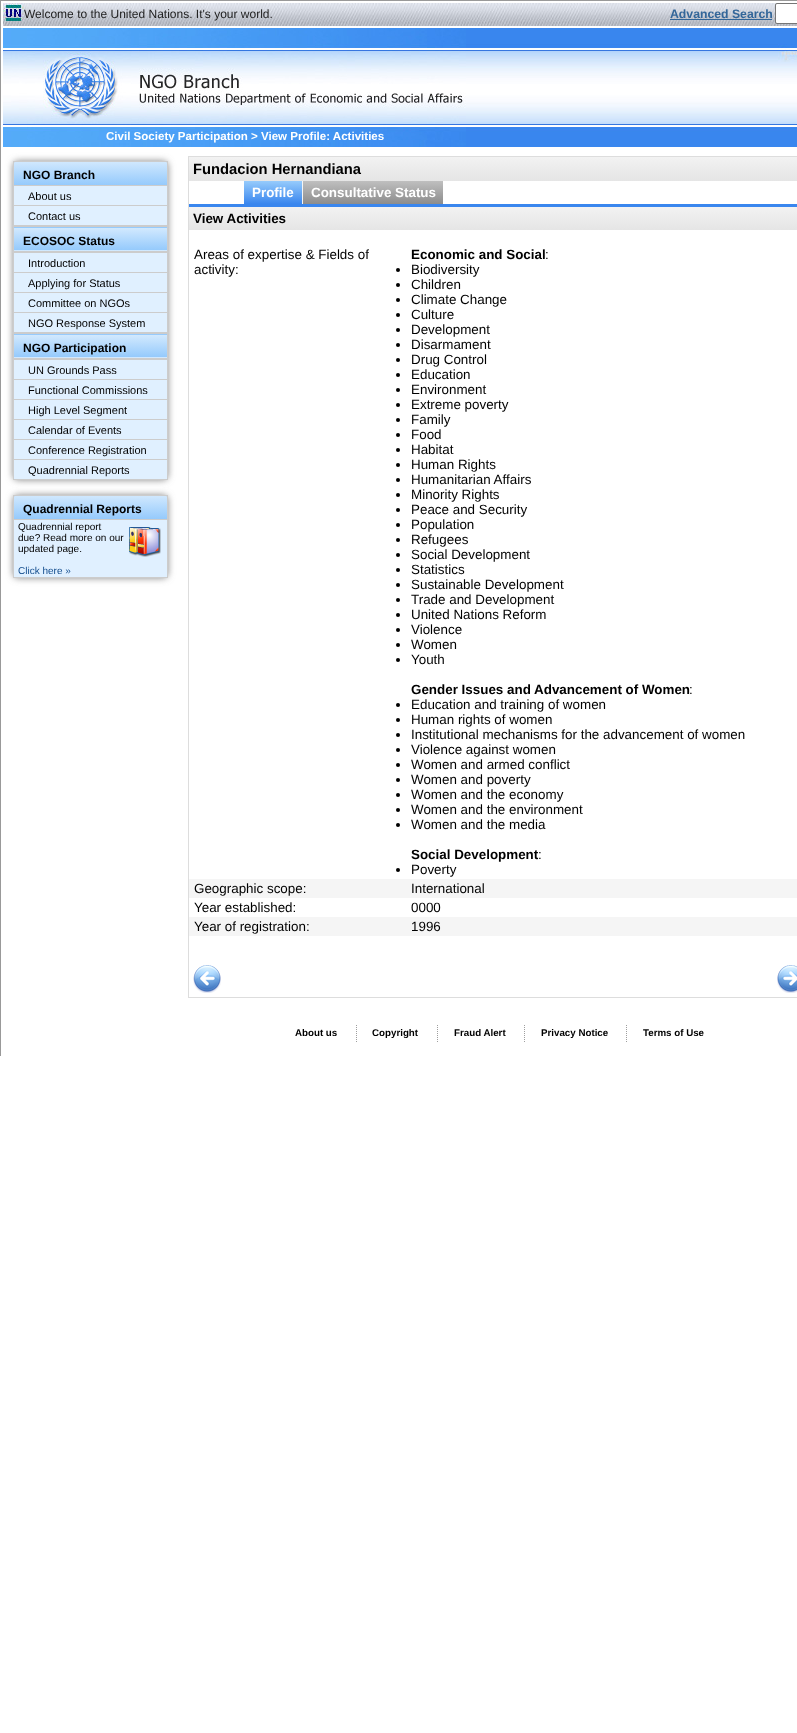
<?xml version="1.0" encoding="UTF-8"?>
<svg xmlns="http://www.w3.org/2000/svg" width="797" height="1733">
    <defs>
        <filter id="blur1" x="-50%" y="-200%" width="200%" height="500%"><feGaussianBlur stdDeviation="3.5"/></filter>
        <linearGradient id="g1" gradientUnits="userSpaceOnUse" x1="91" y1="161" x2="91" y2="185"><stop offset="0" stop-color="#D2E9FE"/><stop offset="1" stop-color="#95CAFC"/></linearGradient>
        <linearGradient id="g2" gradientUnits="userSpaceOnUse" x1="91" y1="206" x2="91" y2="228"><stop offset="0" stop-color="#D2E9FE"/><stop offset="1" stop-color="#95CAFC"/></linearGradient>
        <linearGradient id="g3" gradientUnits="userSpaceOnUse" x1="91" y1="250" x2="91" y2="272"><stop offset="0" stop-color="#D2E9FE"/><stop offset="1" stop-color="#95CAFC"/></linearGradient>
        <linearGradient id="g4" gradientUnits="userSpaceOnUse" x1="91" y1="313" x2="91" y2="335"><stop offset="0" stop-color="#D2E9FE"/><stop offset="1" stop-color="#95CAFC"/></linearGradient>
        <linearGradient id="g5" gradientUnits="userSpaceOnUse" x1="91" y1="357" x2="91" y2="379"><stop offset="0" stop-color="#D2E9FE"/><stop offset="1" stop-color="#95CAFC"/></linearGradient>
        <linearGradient id="g6" gradientUnits="userSpaceOnUse" x1="91" y1="228" x2="91" y2="250"><stop offset="0" stop-color="#D2E9FE"/><stop offset="1" stop-color="#95CAFC"/></linearGradient>
        <linearGradient id="g7" gradientUnits="userSpaceOnUse" x1="91" y1="335" x2="91" y2="357"><stop offset="0" stop-color="#D2E9FE"/><stop offset="1" stop-color="#95CAFC"/></linearGradient>
        <linearGradient id="g8" gradientUnits="userSpaceOnUse" x1="91" y1="495" x2="91" y2="519"><stop offset="0" stop-color="#D2E9FE"/><stop offset="1" stop-color="#95CAFC"/></linearGradient>
        <linearGradient id="g9" gradientUnits="userSpaceOnUse" x1="499" y1="157" x2="499" y2="181"><stop offset="0" stop-color="#F2F2F2"/><stop offset="1" stop-color="#E5E5E5"/></linearGradient>
        <linearGradient id="g10" gradientUnits="userSpaceOnUse" x1="273" y1="181" x2="273" y2="204"><stop offset="0" stop-color="#96CBFC"/><stop offset="1" stop-color="#3986EE"/></linearGradient>
        <linearGradient id="g11" gradientUnits="userSpaceOnUse" x1="373" y1="181" x2="373" y2="204"><stop offset="0" stop-color="#BFBFBF"/><stop offset="1" stop-color="#8C8C8C"/></linearGradient>
        <linearGradient id="g12" gradientUnits="userSpaceOnUse" x1="499" y1="207" x2="499" y2="230"><stop offset="0" stop-color="#F2F2F2"/><stop offset="1" stop-color="#E5E5E5"/></linearGradient>
    </defs>
    <rect width="100%" height="100%" fill="#FFFFFF"/>
    <rect x="0" y="0" width="797" height="1" fill="#999999"/>
    <rect x="0" y="0" width="1" height="1056" fill="#999999"/>
    <image x="3" y="3" width="794" height="23" href="img_01.png"/>
    <image x="3" y="3" width="21" height="18" href="img_02.png"/>
    <text x="24" y="18" font-family="Liberation Sans" font-size="12" fill="#1E1E1E">Welcome to the United Nations. It's your world.</text>
    <text x="670" y="18" font-family="Liberation Sans" font-size="12.25" font-weight="700" fill="#336699">Advanced Search</text>
    <rect x="670" y="19" width="102" height="1" fill="#336699"/>
    <rect x="775.5" y="3.5" width="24" height="20" rx="1.5" fill="#FFFFFF" stroke="#767676"/>
    <image x="466" y="28" width="331" height="119" href="img_03.png"/>
    <image x="3" y="28" width="463" height="119" href="img_04.png"/>
    <image x="778" y="44" width="19" height="18" href="img_05.png"/>
    <text x="106" y="140" font-family="Liberation Sans" font-size="11.55" font-weight="700" fill="#FFFFFF">Civil Society Participation &gt; View Profile: Activities</text>
    <rect x="13" y="161" width="155" height="319" rx="5" fill="#888888" filter="url(#blur1)"/>
    <path d="M 18 161 H 163 C 166 161 168 163 168 166 V 185 H 13 V 166 C 13 163 15 161 18 161 Z" fill="url(#g1)"/>
    <rect x="13" y="161" width="155" height="1" fill="#CCCCCC"/>
    <rect x="13" y="227" width="155" height="1" fill="url(#g2)"/>
    <rect x="13" y="250" width="155" height="1" fill="url(#g3)"/>
    <rect x="13" y="334" width="155" height="1" fill="url(#g4)"/>
    <rect x="13" y="357" width="155" height="1" fill="url(#g5)"/>
    <rect x="167" y="161" width="1" height="319" fill="#CCCCCC"/>
    <rect x="13" y="479" width="155" height="1" fill="#CCCCCC"/>
    <rect x="13" y="161" width="1" height="319" fill="#CCCCCC"/>
    <text x="23" y="179" font-family="Liberation Sans" font-size="12" font-weight="700" fill="#000000">NGO Branch</text>
    <rect x="13" y="185" width="155" height="1" fill="#CCCCCC"/>
    <rect x="14" y="186" width="153" height="19" fill="#E0F0FF"/>
    <text x="28" y="200" font-family="Liberation Sans" font-size="11" fill="#000000">About us</text>
    <rect x="13" y="205" width="155" height="1" fill="#CCCCCC"/>
    <rect x="14" y="206" width="153" height="19" fill="#E0F0FF"/>
    <text x="28" y="220" font-family="Liberation Sans" font-size="11" fill="#000000">Contact us</text>
    <rect x="14" y="228" width="153" height="22" fill="url(#g6)"/>
    <rect x="12" y="225" width="157" height="2" fill="#CCCCCC"/>
    <rect x="12" y="251" width="157" height="2" fill="#CCCCCC"/>
    <text x="23" y="245" font-family="Liberation Sans" font-size="12" font-weight="700" fill="#000000">ECOSOC Status</text>
    <rect x="14" y="253" width="153" height="19" fill="#E0F0FF"/>
    <text x="28" y="267" font-family="Liberation Sans" font-size="11" fill="#000000">Introduction</text>
    <rect x="13" y="272" width="155" height="1" fill="#CCCCCC"/>
    <rect x="14" y="273" width="153" height="19" fill="#E0F0FF"/>
    <text x="28" y="287" font-family="Liberation Sans" font-size="11" fill="#000000">Applying for Status</text>
    <rect x="13" y="292" width="155" height="1" fill="#CCCCCC"/>
    <rect x="14" y="293" width="153" height="19" fill="#E0F0FF"/>
    <text x="28" y="307" font-family="Liberation Sans" font-size="11" fill="#000000">Committee on NGOs</text>
    <rect x="13" y="312" width="155" height="1" fill="#CCCCCC"/>
    <rect x="14" y="313" width="153" height="19" fill="#E0F0FF"/>
    <text x="28" y="327" font-family="Liberation Sans" font-size="11" fill="#000000">NGO Response System</text>
    <rect x="14" y="335" width="153" height="22" fill="url(#g7)"/>
    <rect x="12" y="332" width="157" height="2" fill="#CCCCCC"/>
    <rect x="12" y="358" width="157" height="2" fill="#CCCCCC"/>
    <text x="23" y="352" font-family="Liberation Sans" font-size="12" font-weight="700" fill="#000000">NGO Participation</text>
    <rect x="14" y="360" width="153" height="19" fill="#E0F0FF"/>
    <text x="28" y="374" font-family="Liberation Sans" font-size="11" fill="#000000">UN Grounds Pass</text>
    <rect x="13" y="379" width="155" height="1" fill="#CCCCCC"/>
    <rect x="14" y="380" width="153" height="19" fill="#E0F0FF"/>
    <text x="28" y="394" font-family="Liberation Sans" font-size="11" fill="#000000">Functional Commissions</text>
    <rect x="13" y="399" width="155" height="1" fill="#CCCCCC"/>
    <rect x="14" y="400" width="153" height="19" fill="#E0F0FF"/>
    <text x="28" y="414" font-family="Liberation Sans" font-size="11" fill="#000000">High Level Segment</text>
    <rect x="13" y="419" width="155" height="1" fill="#CCCCCC"/>
    <rect x="14" y="420" width="153" height="19" fill="#E0F0FF"/>
    <text x="28" y="434" font-family="Liberation Sans" font-size="11" fill="#000000">Calendar of Events</text>
    <rect x="13" y="439" width="155" height="1" fill="#CCCCCC"/>
    <rect x="14" y="440" width="153" height="19" fill="#E0F0FF"/>
    <text x="28" y="454" font-family="Liberation Sans" font-size="11" fill="#000000">Conference Registration</text>
    <rect x="13" y="459" width="155" height="1" fill="#CCCCCC"/>
    <rect x="14" y="460" width="153" height="19" fill="#E0F0FF"/>
    <text x="28" y="474" font-family="Liberation Sans" font-size="11" fill="#000000">Quadrennial Reports</text>
    <rect x="13" y="495" width="155" height="83" rx="5" fill="#888888" filter="url(#blur1)"/>
    <path d="M 18 495 H 163 C 166 495 168 497 168 500 V 519 H 13 V 500 C 13 497 15 495 18 495 Z" fill="url(#g8)"/>
    <rect x="13" y="495" width="155" height="1" fill="#CCCCCC"/>
    <rect x="167" y="495" width="1" height="83" fill="#CCCCCC"/>
    <rect x="13" y="577" width="155" height="1" fill="#CCCCCC"/>
    <rect x="13" y="495" width="1" height="83" fill="#CCCCCC"/>
    <text x="23" y="513" font-family="Liberation Sans" font-size="12" font-weight="700" fill="#000000">Quadrennial Reports</text>
    <rect x="13" y="519" width="155" height="1" fill="#CCCCCC"/>
    <rect x="14" y="520" width="153" height="57" fill="#E0F0FF"/>
    <text x="18" y="530" font-family="Liberation Sans" font-size="10" fill="#000000">Quadrennial report</text>
    <image x="129" y="527" width="32" height="30" href="img_06.png"/>
    <text font-family="Liberation Sans" font-size="10" fill="#000000">
        <tspan x="18" y="541">due? Read more on our</tspan>
        <tspan x="18" y="552">updated page.</tspan>
    </text>
    <text x="18" y="574" font-family="Liberation Sans" font-size="10" fill="#124C8D">Click here »</text>
    <rect x="188.5" y="156.5" width="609" height="841" fill="none" stroke="#DDDDDD"/>
    <rect x="189" y="157" width="608" height="24" fill="url(#g9)"/>
    <text x="193" y="174" font-family="Liberation Sans" font-size="14.75" font-weight="700" fill="#000000">Fundacion Hernandiana</text>
    <rect x="189" y="204" width="608" height="3" fill="#3986EE"/>
    <rect x="244" y="181" width="58" height="23" fill="url(#g10)"/>
    <rect x="302" y="181" width="1" height="23" fill="#F5F5F5"/>
    <text x="252" y="197" font-family="Liberation Sans" font-size="13.4" font-weight="700" fill="#FFFFFF">Profile</text>
    <rect x="303" y="181" width="140" height="23" fill="url(#g11)"/>
    <text x="311" y="197" font-family="Liberation Sans" font-size="13.4" font-weight="700" fill="#FFFFFF">Consultative Status</text>
    <rect x="189" y="207" width="608" height="23" fill="url(#g12)"/>
    <text x="193" y="223" font-family="Liberation Sans" font-size="13.4" font-weight="700" fill="#000000">View Activities</text>
    <text font-family="Liberation Sans" font-size="13.4" fill="#000000">
        <tspan x="194" y="259">Areas of expertise &amp; Fields of</tspan>
        <tspan x="194" y="274">activity:</tspan>
    </text>
    <text x="411" y="259" font-family="Liberation Sans" font-size="13.4" font-weight="700" fill="#000000">Economic and Social</text>
    <text x="545" y="259" font-family="Liberation Sans" font-size="13.4" fill="#000000">:</text>
    <circle cx="398" cy="270" r="2" fill="#000000"/>
    <text x="411" y="274" font-family="Liberation Sans" font-size="13.4" fill="#000000">Biodiversity</text>
    <circle cx="398" cy="285" r="2" fill="#000000"/>
    <text x="411" y="289" font-family="Liberation Sans" font-size="13.4" fill="#000000">Children</text>
    <circle cx="398" cy="300" r="2" fill="#000000"/>
    <text x="411" y="304" font-family="Liberation Sans" font-size="13.4" fill="#000000">Climate Change</text>
    <circle cx="398" cy="315" r="2" fill="#000000"/>
    <text x="411" y="319" font-family="Liberation Sans" font-size="13.4" fill="#000000">Culture</text>
    <circle cx="398" cy="330" r="2" fill="#000000"/>
    <text x="411" y="334" font-family="Liberation Sans" font-size="13.4" fill="#000000">Development</text>
    <circle cx="398" cy="345" r="2" fill="#000000"/>
    <text x="411" y="349" font-family="Liberation Sans" font-size="13.4" fill="#000000">Disarmament</text>
    <circle cx="398" cy="360" r="2" fill="#000000"/>
    <text x="411" y="364" font-family="Liberation Sans" font-size="13.4" fill="#000000">Drug Control</text>
    <circle cx="398" cy="375" r="2" fill="#000000"/>
    <text x="411" y="379" font-family="Liberation Sans" font-size="13.4" fill="#000000">Education</text>
    <circle cx="398" cy="390" r="2" fill="#000000"/>
    <text x="411" y="394" font-family="Liberation Sans" font-size="13.4" fill="#000000">Environment</text>
    <circle cx="398" cy="405" r="2" fill="#000000"/>
    <text x="411" y="409" font-family="Liberation Sans" font-size="13.4" fill="#000000">Extreme poverty</text>
    <circle cx="398" cy="420" r="2" fill="#000000"/>
    <text x="411" y="424" font-family="Liberation Sans" font-size="13.4" fill="#000000">Family</text>
    <circle cx="398" cy="435" r="2" fill="#000000"/>
    <text x="411" y="439" font-family="Liberation Sans" font-size="13.4" fill="#000000">Food</text>
    <circle cx="398" cy="450" r="2" fill="#000000"/>
    <text x="411" y="454" font-family="Liberation Sans" font-size="13.4" fill="#000000">Habitat</text>
    <circle cx="398" cy="465" r="2" fill="#000000"/>
    <text x="411" y="469" font-family="Liberation Sans" font-size="13.4" fill="#000000">Human Rights</text>
    <circle cx="398" cy="480" r="2" fill="#000000"/>
    <text x="411" y="484" font-family="Liberation Sans" font-size="13.4" fill="#000000">Humanitarian Affairs</text>
    <circle cx="398" cy="495" r="2" fill="#000000"/>
    <text x="411" y="499" font-family="Liberation Sans" font-size="13.4" fill="#000000">Minority Rights</text>
    <circle cx="398" cy="510" r="2" fill="#000000"/>
    <text x="411" y="514" font-family="Liberation Sans" font-size="13.4" fill="#000000">Peace and Security</text>
    <circle cx="398" cy="525" r="2" fill="#000000"/>
    <text x="411" y="529" font-family="Liberation Sans" font-size="13.4" fill="#000000">Population</text>
    <circle cx="398" cy="540" r="2" fill="#000000"/>
    <text x="411" y="544" font-family="Liberation Sans" font-size="13.4" fill="#000000">Refugees</text>
    <circle cx="398" cy="555" r="2" fill="#000000"/>
    <text x="411" y="559" font-family="Liberation Sans" font-size="13.4" fill="#000000">Social Development</text>
    <circle cx="398" cy="570" r="2" fill="#000000"/>
    <text x="411" y="574" font-family="Liberation Sans" font-size="13.4" fill="#000000">Statistics</text>
    <circle cx="398" cy="585" r="2" fill="#000000"/>
    <text x="411" y="589" font-family="Liberation Sans" font-size="13.4" fill="#000000">Sustainable Development</text>
    <circle cx="398" cy="600" r="2" fill="#000000"/>
    <text x="411" y="604" font-family="Liberation Sans" font-size="13.4" fill="#000000">Trade and Development</text>
    <circle cx="398" cy="615" r="2" fill="#000000"/>
    <text x="411" y="619" font-family="Liberation Sans" font-size="13.4" fill="#000000">United Nations Reform</text>
    <circle cx="398" cy="630" r="2" fill="#000000"/>
    <text x="411" y="634" font-family="Liberation Sans" font-size="13.4" fill="#000000">Violence</text>
    <circle cx="398" cy="645" r="2" fill="#000000"/>
    <text x="411" y="649" font-family="Liberation Sans" font-size="13.4" fill="#000000">Women</text>
    <circle cx="398" cy="660" r="2" fill="#000000"/>
    <text x="411" y="664" font-family="Liberation Sans" font-size="13.4" fill="#000000">Youth</text>
    <text x="411" y="694" font-family="Liberation Sans" font-size="13.4" font-weight="700" fill="#000000">Gender Issues and Advancement of Women</text>
    <text x="689" y="694" font-family="Liberation Sans" font-size="13.4" fill="#000000">:</text>
    <circle cx="398" cy="705" r="2" fill="#000000"/>
    <text x="411" y="709" font-family="Liberation Sans" font-size="13.4" fill="#000000">Education and training of women</text>
    <circle cx="398" cy="720" r="2" fill="#000000"/>
    <text x="411" y="724" font-family="Liberation Sans" font-size="13.4" fill="#000000">Human rights of women</text>
    <circle cx="398" cy="735" r="2" fill="#000000"/>
    <text x="411" y="739" font-family="Liberation Sans" font-size="13.4" fill="#000000">Institutional mechanisms for the advancement of women</text>
    <circle cx="398" cy="750" r="2" fill="#000000"/>
    <text x="411" y="754" font-family="Liberation Sans" font-size="13.4" fill="#000000">Violence against women</text>
    <circle cx="398" cy="765" r="2" fill="#000000"/>
    <text x="411" y="769" font-family="Liberation Sans" font-size="13.4" fill="#000000">Women and armed conflict</text>
    <circle cx="398" cy="780" r="2" fill="#000000"/>
    <text x="411" y="784" font-family="Liberation Sans" font-size="13.4" fill="#000000">Women and poverty</text>
    <circle cx="398" cy="795" r="2" fill="#000000"/>
    <text x="411" y="799" font-family="Liberation Sans" font-size="13.4" fill="#000000">Women and the economy</text>
    <circle cx="398" cy="810" r="2" fill="#000000"/>
    <text x="411" y="814" font-family="Liberation Sans" font-size="13.4" fill="#000000">Women and the environment</text>
    <circle cx="398" cy="825" r="2" fill="#000000"/>
    <text x="411" y="829" font-family="Liberation Sans" font-size="13.4" fill="#000000">Women and the media</text>
    <text x="411" y="859" font-family="Liberation Sans" font-size="13.4" font-weight="700" fill="#000000">Social Development</text>
    <text x="538" y="859" font-family="Liberation Sans" font-size="13.4" fill="#000000">:</text>
    <circle cx="398" cy="870" r="2" fill="#000000"/>
    <text x="411" y="874" font-family="Liberation Sans" font-size="13.4" fill="#000000">Poverty</text>
    <rect x="189" y="879" width="608" height="19" fill="#F5F5F5"/>
    <text x="194" y="893" font-family="Liberation Sans" font-size="13.4" fill="#000000">Geographic scope:</text>
    <text x="411" y="893" font-family="Liberation Sans" font-size="13.4" fill="#000000">International</text>
    <text x="194" y="912" font-family="Liberation Sans" font-size="13.4" fill="#000000">Year established:</text>
    <text x="411" y="912" font-family="Liberation Sans" font-size="13.4" fill="#000000">0000</text>
    <rect x="189" y="917" width="608" height="19" fill="#F5F5F5"/>
    <text x="194" y="931" font-family="Liberation Sans" font-size="13.4" fill="#000000">Year of registration:</text>
    <text x="411" y="931" font-family="Liberation Sans" font-size="13.4" fill="#000000">1996</text>
    <image x="193" y="965" width="28" height="28" href="img_07.png"/>
    <image x="777" y="965" width="20" height="28" href="img_08.png"/>
    <text x="295" y="1036" font-family="Liberation Sans" font-size="9.75" font-weight="700" fill="#000000">About us</text>
    <path d="M 356.5 1025 V 1042" fill="none" stroke="#9E9E9E" stroke-dasharray="1 1"/>
    <text x="372" y="1036" font-family="Liberation Sans" font-size="9.75" font-weight="700" fill="#000000">Copyright</text>
    <path d="M 437.5 1025 V 1042" fill="none" stroke="#9E9E9E" stroke-dasharray="1 1"/>
    <text x="454" y="1036" font-family="Liberation Sans" font-size="9.75" font-weight="700" fill="#000000">Fraud Alert</text>
    <path d="M 524.5 1025 V 1042" fill="none" stroke="#9E9E9E" stroke-dasharray="1 1"/>
    <text x="541" y="1036" font-family="Liberation Sans" font-size="9.75" font-weight="700" fill="#000000">Privacy Notice</text>
    <path d="M 626.5 1025 V 1042" fill="none" stroke="#9E9E9E" stroke-dasharray="1 1"/>
    <text x="643" y="1036" font-family="Liberation Sans" font-size="9.75" font-weight="700" fill="#000000">Terms of Use</text>
</svg>
